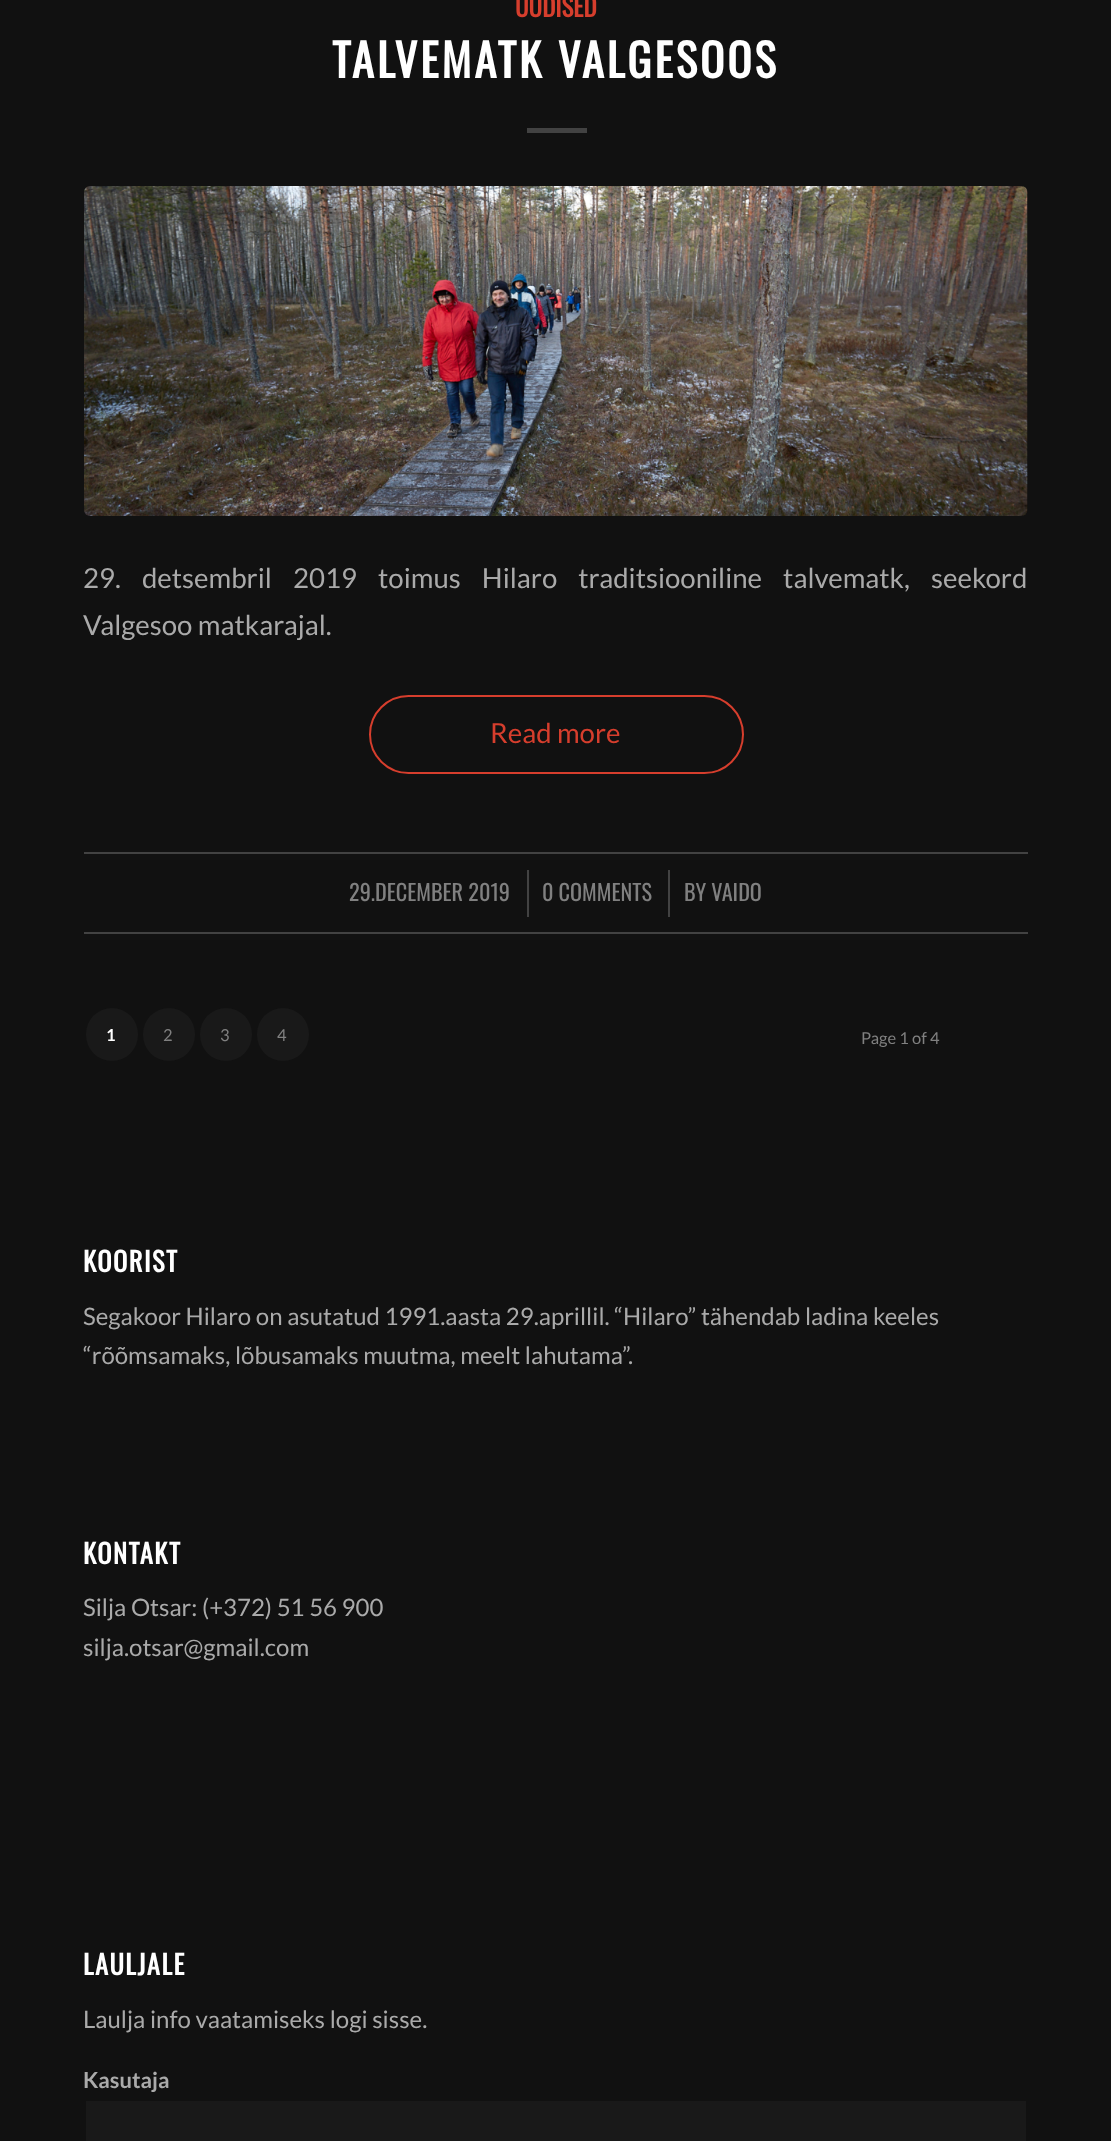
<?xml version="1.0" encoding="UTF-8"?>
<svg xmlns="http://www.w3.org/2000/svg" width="1111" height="2141">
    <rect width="100%" height="100%" fill="#111111"/>
    <text x="515" y="17" font-family="Oswald" font-size="25" font-weight="700" fill="#D63E2D">UUDISED</text>
    <text x="332" y="78" font-family="Oswald" font-size="45" font-weight="700" letter-spacing="3" fill="#FFFFFF">TALVEMATK VALGESOOS</text>
    <rect x="527" y="128" width="60" height="5" fill="#424242"/>
    <image x="84" y="186" width="944" height="330" href="img_01.png"/>
    <text font-family="Lato" font-size="27.6" fill="#AAAAAA">
        <tspan x="83" y="588" word-spacing="15.75">29. detsembril 2019 toimus Hilaro traditsiooniline talvematk, seekord</tspan>
        <tspan x="83" y="635">Valgesoo matkarajal.</tspan>
    </text>
    <rect x="370" y="696" width="373" height="77" rx="38.5" fill="none" stroke="#D63E2D" stroke-width="2"/>
    <text x="490" y="743" font-family="Lato" font-size="27.6" fill="#D63E2D">Read more</text>
    <rect x="84" y="852" width="944" height="2" fill="#424242"/>
    <rect x="84" y="932" width="944" height="2" fill="#424242"/>
    <text x="349" y="901" font-family="Oswald" font-size="22.25" fill="#808080">29.DECEMBER 2019</text>
    <rect x="527" y="870" width="2" height="47" fill="#424242"/>
    <text x="542" y="901" font-family="Oswald" font-size="22.25" fill="#808080">0 COMMENTS</text>
    <rect x="668" y="870" width="2" height="47" fill="#424242"/>
    <text x="684" y="901" font-family="Oswald" font-size="22.25" fill="#808080">BY VAIDO</text>
    <rect x="86" y="1008" width="52" height="53" rx="26" fill="#191919"/>
    <text x="106" y="1041" font-family="Lato" font-size="16.5" font-weight="700" fill="#FFFFFF">1</text>
    <rect x="143" y="1008" width="52" height="53" rx="26" fill="#191919"/>
    <text x="163" y="1041" font-family="Lato" font-size="16.5" fill="#808080">2</text>
    <rect x="200" y="1008" width="52" height="53" rx="26" fill="#191919"/>
    <text x="220" y="1041" font-family="Lato" font-size="16.5" fill="#808080">3</text>
    <rect x="257" y="1008" width="52" height="53" rx="26" fill="#191919"/>
    <text x="277" y="1041" font-family="Lato" font-size="16.5" fill="#808080">4</text>
    <text x="861" y="1044" font-family="Lato" font-size="16.5" fill="#808080">Page 1 of 4</text>
    <text x="83" y="1272" font-family="Oswald" font-size="26.5" font-weight="700" letter-spacing="1.5" fill="#FFFFFF">KOORIST</text>
    <text font-family="Lato" font-size="24" fill="#AAAAAA">
        <tspan x="83" y="1325">Segakoor Hilaro on asutatud 1991.aasta 29.aprillil. “Hilaro” tähendab ladina keeles</tspan>
        <tspan x="83" y="1364">“rõõmsamaks, lõbusamaks muutma, meelt lahutama”.</tspan>
    </text>
    <text x="83" y="1564" font-family="Oswald" font-size="26.5" font-weight="700" letter-spacing="1.5" fill="#FFFFFF">KONTAKT</text>
    <text font-family="Lato" font-size="24" fill="#AAAAAA">
        <tspan x="83" y="1616">Silja Otsar: (+372) 51 56 900</tspan>
        <tspan x="83" y="1656">silja.otsar@gmail.com</tspan>
    </text>
    <text x="83" y="1975" font-family="Oswald" font-size="26.5" font-weight="700" letter-spacing="1.5" fill="#FFFFFF">LAULJALE</text>
    <text x="83" y="2028" font-family="Lato" font-size="24" fill="#AAAAAA">Laulja info vaatamiseks logi sisse.</text>
    <text x="83" y="2088" font-family="Lato" font-size="22" font-weight="700" fill="#AAAAAA">Kasutaja</text>
    <rect x="86" y="2101" width="940" height="40" fill="#191919"/>
</svg>
